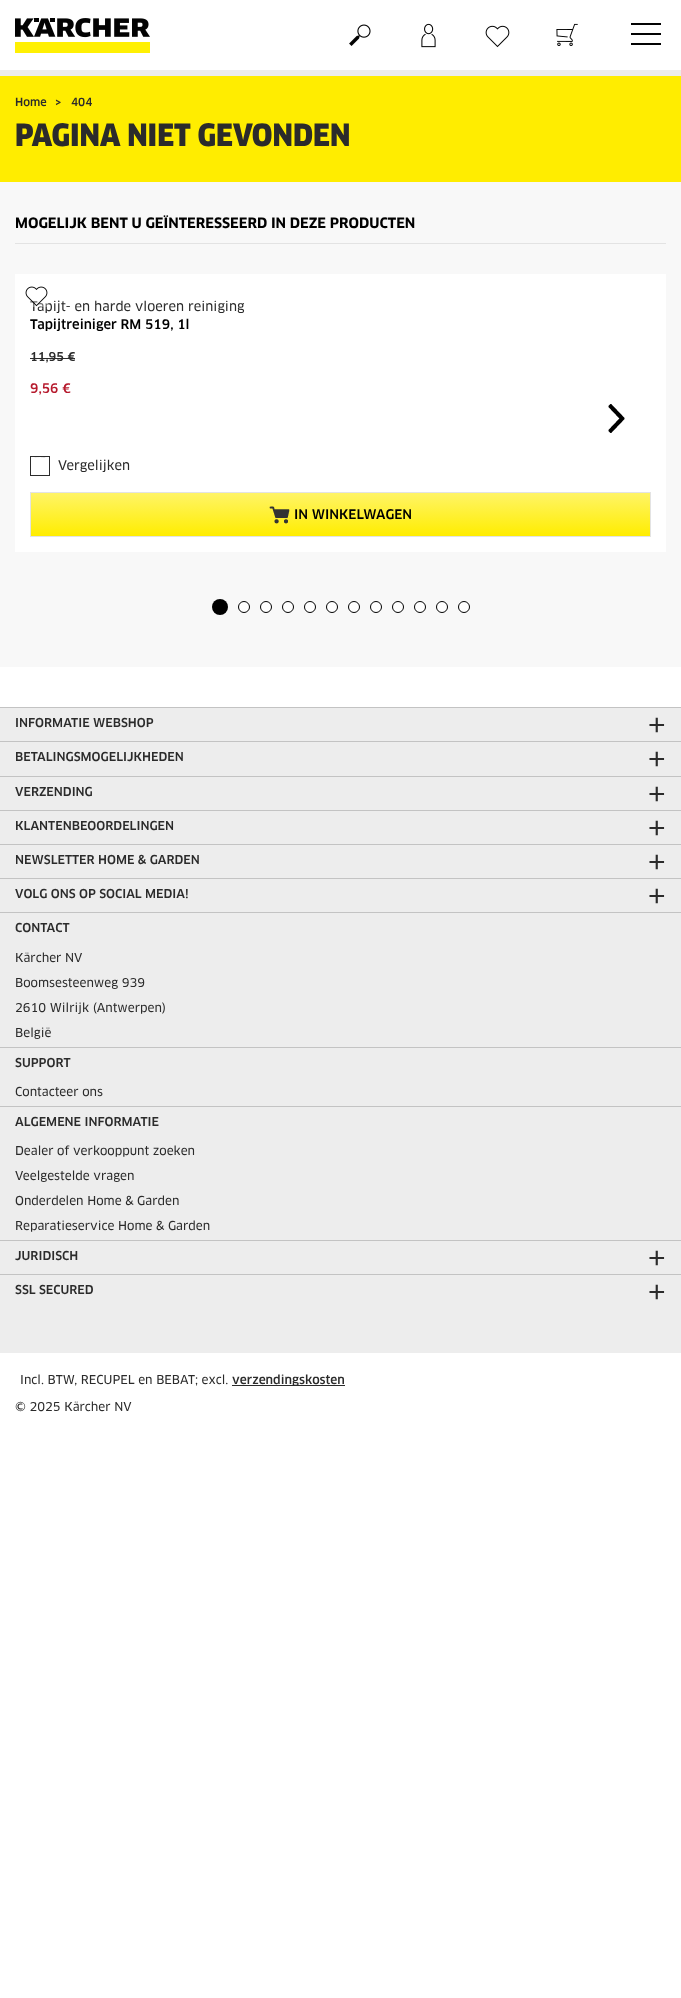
<?xml version="1.0" encoding="UTF-8"?>
<svg xmlns="http://www.w3.org/2000/svg" width="681" height="1998">
    <defs>
        <linearGradient id="g1" gradientUnits="userSpaceOnUse" x1="341" y1="536" x2="341" y2="493"><stop offset="0" stop-color="#FFED00"/><stop offset="1" stop-color="#FFF466"/></linearGradient>
    </defs>
    <rect width="100%" height="100%" fill="#FFFFFF"/>
    <rect x="0" y="70" width="681" height="6" fill="#EDEDEB"/>
    <image x="15" y="18" width="135" height="35" href="img_01.png"/>
    <image x="349" y="24" width="22" height="22" href="img_02.png"/>
    <image x="421" y="23" width="15" height="25" href="img_03.png"/>
    <image x="485" y="25" width="25" height="23" href="img_04.png"/>
    <image x="556" y="23" width="22" height="23" href="img_05.png"/>
    <rect x="631" y="23" width="30" height="2" fill="#030303"/>
    <rect x="631" y="33" width="30" height="2" fill="#030303"/>
    <rect x="631" y="43" width="30" height="2" fill="#030303"/>
    <rect x="0" y="76" width="681" height="106" fill="#FFED00"/>
    <text x="15" y="106" font-family="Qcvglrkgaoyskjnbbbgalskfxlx" font-size="11" font-weight="500" fill="#2B2B2B">Home</text>
    <text x="55" y="106" font-family="Qcvglrkgaoyskjnbbbgalskfxlx" font-size="11" font-weight="500" fill="#2B2B2B">&gt;</text>
    <text x="71" y="106" font-family="Qcvglrkgaoyskjnbbbgalskfxlx" font-size="11" font-weight="500" fill="#2B2B2B">404</text>
    <text x="15" y="146" font-family="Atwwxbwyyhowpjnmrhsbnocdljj" font-size="30" font-weight="900" fill="#2B2B2B">PAGINA NIET GEVONDEN</text>
    <rect x="0" y="182" width="681" height="485" fill="#F8F8F8"/>
    <rect x="15" y="243" width="651" height="1" fill="#E3E3E3"/>
    <text x="15" y="228" font-family="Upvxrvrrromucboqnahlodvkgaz" font-size="14" font-weight="700" fill="#000000">MOGELIJK BENT U GEÏNTERESSEERD IN DEZE PRODUCTEN</text>
    <rect x="15" y="274" width="651" height="278" fill="#FFFFFF"/>
    <text x="30" y="311" font-family="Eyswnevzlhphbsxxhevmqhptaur" font-size="13" fill="#2B2B2B">Tapijt- en harde vloeren reiniging</text>
    <rect x="30" y="301" width="18" height="6" fill="#FFFFFF" fill-opacity="0.3"/>
    <image x="25" y="286" width="23" height="21" href="img_06.png"/>
    <text x="30" y="329" font-family="Qcvglrkgaoyskjnbbbgalskfxlx" font-size="13" font-weight="500" fill="#000000">Tapijtreiniger RM 519, 1l</text>
    <text x="30" y="361" font-family="Qcvglrkgaoyskjnbbbgalskfxlx" font-size="12" font-weight="500" fill="#2B2B2B">11,95 €</text>
    <rect x="30" y="358" width="45" height="1" fill="#2B2B2B"/>
    <text x="30" y="393" font-family="Qcvglrkgaoyskjnbbbgalskfxlx" font-size="13" font-weight="500" fill="#B61A2D">9,56 €</text>
    <image x="30" y="456" width="20" height="20" href="img_07.png"/>
    <text x="58" y="470" font-family="Eyswnevzlhphbsxxhevmqhptaur" font-size="13" fill="#2B2B2B">Vergelijken</text>
    <rect x="31" y="493" width="619" height="43" fill="url(#g1)"/>
    <rect x="30.5" y="492.5" width="620" height="44" fill="none" stroke="#E3E3E3"/>
    <image x="269" y="506" width="21" height="18" href="img_08.png"/>
    <text x="294" y="519" font-family="Qcvglrkgaoyskjnbbbgalskfxlx" font-size="13" font-weight="500" fill="#000000">IN WINKELWAGEN</text>
    <image x="608" y="404" width="17" height="29" href="img_09.png"/>
    <circle cx="220" cy="607" r="8" fill="#000000"/>
    <circle cx="244" cy="607" r="5.5" fill="#FFFFFF" stroke="#000000"/>
    <circle cx="266" cy="607" r="5.5" fill="#FFFFFF" stroke="#000000"/>
    <circle cx="288" cy="607" r="5.5" fill="#FFFFFF" stroke="#000000"/>
    <circle cx="310" cy="607" r="5.5" fill="#FFFFFF" stroke="#000000"/>
    <circle cx="332" cy="607" r="5.5" fill="#FFFFFF" stroke="#000000"/>
    <circle cx="354" cy="607" r="5.5" fill="#FFFFFF" stroke="#000000"/>
    <circle cx="376" cy="607" r="5.5" fill="#FFFFFF" stroke="#000000"/>
    <circle cx="398" cy="607" r="5.5" fill="#FFFFFF" stroke="#000000"/>
    <circle cx="420" cy="607" r="5.5" fill="#FFFFFF" stroke="#000000"/>
    <circle cx="442" cy="607" r="5.5" fill="#FFFFFF" stroke="#000000"/>
    <circle cx="464" cy="607" r="5.5" fill="#FFFFFF" stroke="#000000"/>
    <rect x="0" y="708" width="681" height="645" fill="#EDEDED"/>
    <rect x="0" y="707" width="681" height="1" fill="#C3C3C3"/>
    <text x="15" y="727" font-family="Qcvglrkgaoyskjnbbbgalskfxlx" font-size="12" font-weight="500" fill="#2B2B2B">INFORMATIE WEBSHOP</text>
    <text x="648" y="735" font-family="Liberation Sans" font-size="30" fill="#2B2B2B">+</text>
    <rect x="0" y="741" width="681" height="1" fill="#C3C3C3"/>
    <text x="15" y="761" font-family="Qcvglrkgaoyskjnbbbgalskfxlx" font-size="12" font-weight="500" fill="#2B2B2B">BETALINGSMOGELIJKHEDEN</text>
    <text x="648" y="769" font-family="Liberation Sans" font-size="30" fill="#2B2B2B">+</text>
    <rect x="0" y="776" width="681" height="1" fill="#C3C3C3"/>
    <text x="15" y="796" font-family="Qcvglrkgaoyskjnbbbgalskfxlx" font-size="12" font-weight="500" fill="#2B2B2B">VERZENDING</text>
    <text x="648" y="804" font-family="Liberation Sans" font-size="30" fill="#2B2B2B">+</text>
    <rect x="0" y="810" width="681" height="1" fill="#C3C3C3"/>
    <text x="15" y="830" font-family="Qcvglrkgaoyskjnbbbgalskfxlx" font-size="12" font-weight="500" fill="#2B2B2B">KLANTENBEOORDELINGEN</text>
    <text x="648" y="838" font-family="Liberation Sans" font-size="30" fill="#2B2B2B">+</text>
    <rect x="0" y="844" width="681" height="1" fill="#C3C3C3"/>
    <text x="15" y="864" font-family="Qcvglrkgaoyskjnbbbgalskfxlx" font-size="12" font-weight="500" fill="#2B2B2B">NEWSLETTER HOME &amp; GARDEN</text>
    <text x="648" y="872" font-family="Liberation Sans" font-size="30" fill="#2B2B2B">+</text>
    <rect x="0" y="878" width="681" height="1" fill="#C3C3C3"/>
    <text x="15" y="898" font-family="Qcvglrkgaoyskjnbbbgalskfxlx" font-size="12" font-weight="500" fill="#2B2B2B">VOLG ONS OP SOCIAL MEDIA!</text>
    <text x="648" y="906" font-family="Liberation Sans" font-size="30" fill="#2B2B2B">+</text>
    <rect x="0" y="912" width="681" height="1" fill="#C3C3C3"/>
    <text x="15" y="932" font-family="Qcvglrkgaoyskjnbbbgalskfxlx" font-size="12" font-weight="500" fill="#2B2B2B">CONTACT</text>
    <text x="15" y="962" font-family="Eyswnevzlhphbsxxhevmqhptaur" font-size="12" fill="#2B2B2B">Kärcher NV</text>
    <text x="15" y="987" font-family="Eyswnevzlhphbsxxhevmqhptaur" font-size="12" fill="#2B2B2B">Boomsesteenweg 939</text>
    <text x="15" y="1012" font-family="Eyswnevzlhphbsxxhevmqhptaur" font-size="12" fill="#2B2B2B">2610 Wilrijk (Antwerpen)</text>
    <text x="15" y="1037" font-family="Eyswnevzlhphbsxxhevmqhptaur" font-size="12" fill="#2B2B2B">België</text>
    <rect x="0" y="1047" width="681" height="1" fill="#C3C3C3"/>
    <text x="15" y="1067" font-family="Qcvglrkgaoyskjnbbbgalskfxlx" font-size="12" font-weight="500" fill="#2B2B2B">SUPPORT</text>
    <text x="15" y="1096" font-family="Eyswnevzlhphbsxxhevmqhptaur" font-size="12" fill="#2B2B2B">Contacteer ons</text>
    <rect x="0" y="1106" width="681" height="1" fill="#C3C3C3"/>
    <text x="15" y="1126" font-family="Qcvglrkgaoyskjnbbbgalskfxlx" font-size="12" font-weight="500" fill="#2B2B2B">ALGEMENE INFORMATIE</text>
    <text x="15" y="1155" font-family="Eyswnevzlhphbsxxhevmqhptaur" font-size="12" fill="#2B2B2B">Dealer of verkooppunt zoeken</text>
    <text x="15" y="1180" font-family="Eyswnevzlhphbsxxhevmqhptaur" font-size="12" fill="#2B2B2B">Veelgestelde vragen</text>
    <text x="15" y="1205" font-family="Eyswnevzlhphbsxxhevmqhptaur" font-size="12" fill="#2B2B2B">Onderdelen Home &amp; Garden</text>
    <text x="15" y="1230" font-family="Eyswnevzlhphbsxxhevmqhptaur" font-size="12" fill="#2B2B2B">Reparatieservice Home &amp; Garden</text>
    <rect x="0" y="1240" width="681" height="1" fill="#C3C3C3"/>
    <text x="15" y="1260" font-family="Qcvglrkgaoyskjnbbbgalskfxlx" font-size="12" font-weight="500" fill="#2B2B2B">JURIDISCH</text>
    <text x="648" y="1268" font-family="Liberation Sans" font-size="30" fill="#2B2B2B">+</text>
    <rect x="0" y="1274" width="681" height="1" fill="#C3C3C3"/>
    <text x="15" y="1294" font-family="Qcvglrkgaoyskjnbbbgalskfxlx" font-size="12" font-weight="500" fill="#2B2B2B">SSL SECURED</text>
    <text x="648" y="1302" font-family="Liberation Sans" font-size="30" fill="#2B2B2B">+</text>
    <text x="20" y="1384" font-family="Eyswnevzlhphbsxxhevmqhptaur" font-size="12" fill="#2B2B2B">Incl. BTW, RECUPEL en BEBAT; excl.</text>
    <rect x="232" y="1385" width="113" height="1" fill="#2B2B2B"/>
    <text x="232" y="1384" font-family="Qcvglrkgaoyskjnbbbgalskfxlx" font-size="12" font-weight="500" fill="#2B2B2B">verzendingskosten</text>
    <text x="15" y="1411" font-family="Eyswnevzlhphbsxxhevmqhptaur" font-size="12" fill="#2B2B2B">© 2025 Kärcher NV</text>
</svg>
